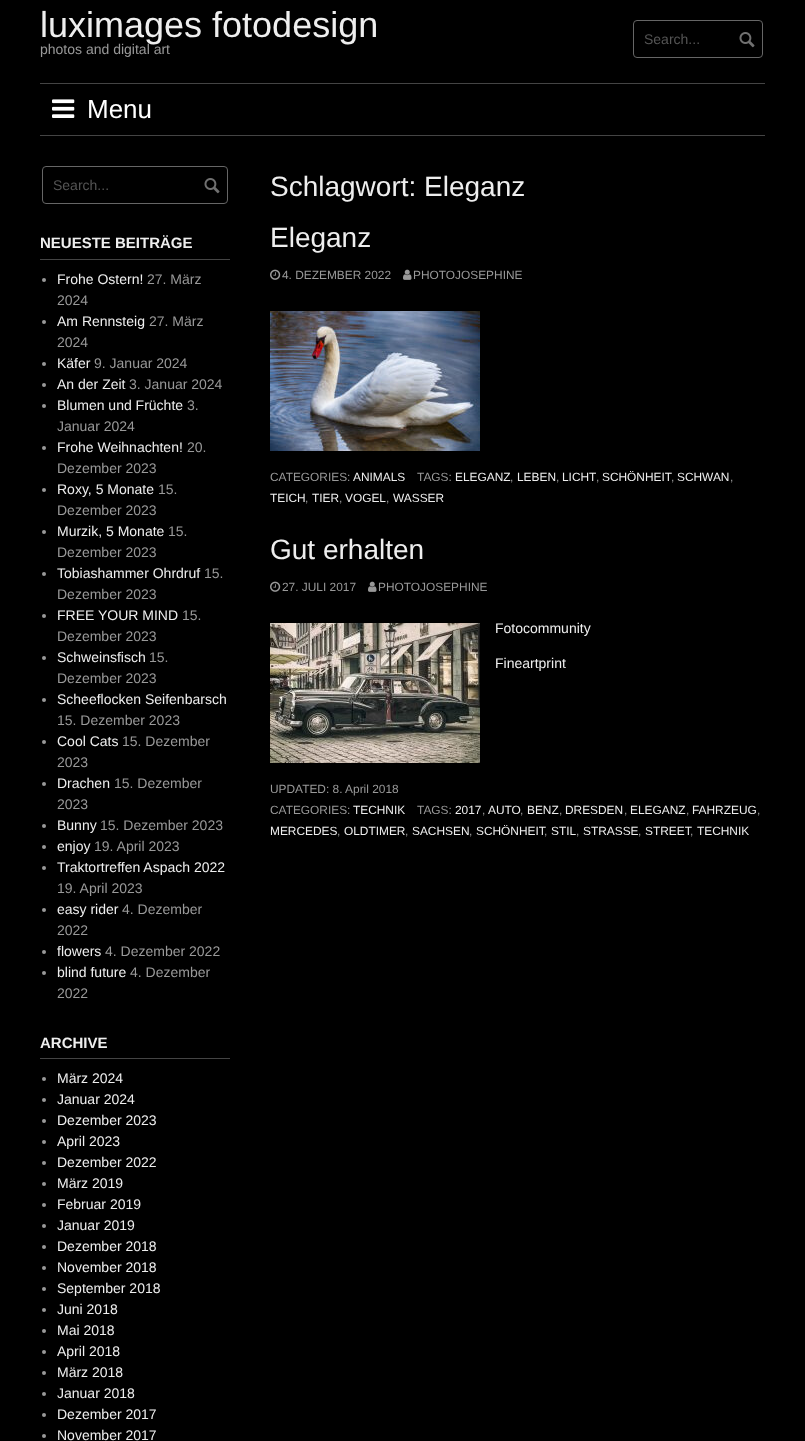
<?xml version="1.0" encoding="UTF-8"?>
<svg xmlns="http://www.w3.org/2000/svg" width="805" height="1441">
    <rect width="100%" height="100%" fill="#000000"/>
    <text x="40" y="37" font-family="Liberation Sans" font-size="36" fill="#EEEEEE">luximages fotodesign</text>
    <text x="40" y="54" font-family="Liberation Sans" font-size="14" fill="#999999">photos and digital art</text>
    <rect x="633.5" y="20.5" width="129" height="37" rx="3.5" fill="none" stroke="#666666"/>
    <text x="644" y="44" font-family="Liberation Sans" font-size="14" fill="#555555">Search...</text>
    <image x="739" y="32" width="16" height="16" href="img_01.png"/>
    <rect x="40" y="83" width="725" height="1" fill="#444444"/>
    <rect x="40" y="135" width="725" height="1" fill="#444444"/>
    <image x="52" y="99" width="23" height="19" href="img_02.png"/>
    <text x="87" y="118" font-family="Liberation Sans" font-size="26" fill="#FFFFFF">Menu</text>
    <rect x="42.5" y="166.5" width="185" height="37" rx="3.5" fill="none" stroke="#666666"/>
    <text x="53" y="190" font-family="Liberation Sans" font-size="14" fill="#555555">Search...</text>
    <image x="204" y="178" width="16" height="16" href="img_01.png"/>
    <rect x="40" y="259" width="190" height="1" fill="#444444"/>
    <text x="40" y="248" font-family="Liberation Sans" font-size="15" font-weight="700" fill="#EEEEEE">NEUESTE BEITRÄGE</text>
    <circle cx="44" cy="280" r="2" fill="#999999"/>
    <text x="57" y="284" font-family="Liberation Sans" font-size="14" fill="#EEEEEE">Frohe Ostern!</text>
    <text x="147" y="284" font-family="Liberation Sans" font-size="14" fill="#999999">27. März</text>
    <text x="57" y="305" font-family="Liberation Sans" font-size="14" fill="#999999">2024</text>
    <circle cx="44" cy="322" r="2" fill="#999999"/>
    <text x="57" y="326" font-family="Liberation Sans" font-size="14" fill="#EEEEEE">Am Rennsteig</text>
    <text x="149" y="326" font-family="Liberation Sans" font-size="14" fill="#999999">27. März</text>
    <text x="57" y="347" font-family="Liberation Sans" font-size="14" fill="#999999">2024</text>
    <circle cx="44" cy="364" r="2" fill="#999999"/>
    <text x="57" y="368" font-family="Liberation Sans" font-size="14" fill="#EEEEEE">Käfer</text>
    <text x="94" y="368" font-family="Liberation Sans" font-size="14" fill="#999999">9. Januar 2024</text>
    <circle cx="44" cy="385" r="2" fill="#999999"/>
    <text x="57" y="389" font-family="Liberation Sans" font-size="14" fill="#EEEEEE">An der Zeit</text>
    <text x="129" y="389" font-family="Liberation Sans" font-size="14" fill="#999999">3. Januar 2024</text>
    <circle cx="44" cy="406" r="2" fill="#999999"/>
    <text x="57" y="410" font-family="Liberation Sans" font-size="14" fill="#EEEEEE">Blumen und Früchte</text>
    <text x="187" y="410" font-family="Liberation Sans" font-size="14" fill="#999999">3.</text>
    <text x="57" y="431" font-family="Liberation Sans" font-size="14" fill="#999999">Januar 2024</text>
    <circle cx="44" cy="448" r="2" fill="#999999"/>
    <text x="57" y="452" font-family="Liberation Sans" font-size="14" fill="#EEEEEE">Frohe Weihnachten!</text>
    <text x="187" y="452" font-family="Liberation Sans" font-size="14" fill="#999999">20.</text>
    <text x="57" y="473" font-family="Liberation Sans" font-size="14" fill="#999999">Dezember 2023</text>
    <circle cx="44" cy="490" r="2" fill="#999999"/>
    <text x="57" y="494" font-family="Liberation Sans" font-size="14" fill="#EEEEEE">Roxy, 5 Monate</text>
    <text x="158" y="494" font-family="Liberation Sans" font-size="14" fill="#999999">15.</text>
    <text x="57" y="515" font-family="Liberation Sans" font-size="14" fill="#999999">Dezember 2023</text>
    <circle cx="44" cy="532" r="2" fill="#999999"/>
    <text x="57" y="536" font-family="Liberation Sans" font-size="14" fill="#EEEEEE">Murzik, 5 Monate</text>
    <text x="168" y="536" font-family="Liberation Sans" font-size="14" fill="#999999">15.</text>
    <text x="57" y="557" font-family="Liberation Sans" font-size="14" fill="#999999">Dezember 2023</text>
    <circle cx="44" cy="574" r="2" fill="#999999"/>
    <text x="57" y="578" font-family="Liberation Sans" font-size="14" fill="#EEEEEE">Tobiashammer Ohrdruf</text>
    <text x="204" y="578" font-family="Liberation Sans" font-size="14" fill="#999999">15.</text>
    <text x="57" y="599" font-family="Liberation Sans" font-size="14" fill="#999999">Dezember 2023</text>
    <circle cx="44" cy="616" r="2" fill="#999999"/>
    <text x="57" y="620" font-family="Liberation Sans" font-size="14" fill="#EEEEEE">FREE YOUR MIND</text>
    <text x="182" y="620" font-family="Liberation Sans" font-size="14" fill="#999999">15.</text>
    <text x="57" y="641" font-family="Liberation Sans" font-size="14" fill="#999999">Dezember 2023</text>
    <circle cx="44" cy="658" r="2" fill="#999999"/>
    <text x="57" y="662" font-family="Liberation Sans" font-size="14" fill="#EEEEEE">Schweinsfisch</text>
    <text x="149" y="662" font-family="Liberation Sans" font-size="14" fill="#999999">15.</text>
    <text x="57" y="683" font-family="Liberation Sans" font-size="14" fill="#999999">Dezember 2023</text>
    <circle cx="44" cy="700" r="2" fill="#999999"/>
    <text x="57" y="704" font-family="Liberation Sans" font-size="14" fill="#EEEEEE">Scheeflocken Seifenbarsch</text>
    <text x="57" y="725" font-family="Liberation Sans" font-size="14" fill="#999999">15. Dezember 2023</text>
    <circle cx="44" cy="742" r="2" fill="#999999"/>
    <text x="57" y="746" font-family="Liberation Sans" font-size="14" fill="#EEEEEE">Cool Cats</text>
    <text x="122" y="746" font-family="Liberation Sans" font-size="14" fill="#999999">15. Dezember</text>
    <text x="57" y="767" font-family="Liberation Sans" font-size="14" fill="#999999">2023</text>
    <circle cx="44" cy="784" r="2" fill="#999999"/>
    <text x="57" y="788" font-family="Liberation Sans" font-size="14" fill="#EEEEEE">Drachen</text>
    <text x="114" y="788" font-family="Liberation Sans" font-size="14" fill="#999999">15. Dezember</text>
    <text x="57" y="809" font-family="Liberation Sans" font-size="14" fill="#999999">2023</text>
    <circle cx="44" cy="826" r="2" fill="#999999"/>
    <text x="57" y="830" font-family="Liberation Sans" font-size="14" fill="#EEEEEE">Bunny</text>
    <text x="100" y="830" font-family="Liberation Sans" font-size="14" fill="#999999">15. Dezember 2023</text>
    <circle cx="44" cy="847" r="2" fill="#999999"/>
    <text x="57" y="851" font-family="Liberation Sans" font-size="14" fill="#EEEEEE">enjoy</text>
    <text x="94" y="851" font-family="Liberation Sans" font-size="14" fill="#999999">19. April 2023</text>
    <circle cx="44" cy="868" r="2" fill="#999999"/>
    <text x="57" y="872" font-family="Liberation Sans" font-size="14" fill="#EEEEEE">Traktortreffen Aspach 2022</text>
    <text x="57" y="893" font-family="Liberation Sans" font-size="14" fill="#999999">19. April 2023</text>
    <circle cx="44" cy="910" r="2" fill="#999999"/>
    <text x="57" y="914" font-family="Liberation Sans" font-size="14" fill="#EEEEEE">easy rider</text>
    <text x="122" y="914" font-family="Liberation Sans" font-size="14" fill="#999999">4. Dezember</text>
    <text x="57" y="935" font-family="Liberation Sans" font-size="14" fill="#999999">2022</text>
    <circle cx="44" cy="952" r="2" fill="#999999"/>
    <text x="57" y="956" font-family="Liberation Sans" font-size="14" fill="#EEEEEE">flowers</text>
    <text x="105" y="956" font-family="Liberation Sans" font-size="14" fill="#999999">4. Dezember 2022</text>
    <circle cx="44" cy="973" r="2" fill="#999999"/>
    <text x="57" y="977" font-family="Liberation Sans" font-size="14" fill="#EEEEEE">blind future</text>
    <text x="130" y="977" font-family="Liberation Sans" font-size="14" fill="#999999">4. Dezember</text>
    <text x="57" y="998" font-family="Liberation Sans" font-size="14" fill="#999999">2022</text>
    <rect x="40" y="1058" width="190" height="1" fill="#444444"/>
    <text x="40" y="1048" font-family="Liberation Sans" font-size="15" font-weight="700" fill="#EEEEEE">ARCHIVE</text>
    <circle cx="44" cy="1079" r="2" fill="#999999"/>
    <text x="57" y="1083" font-family="Liberation Sans" font-size="14" fill="#EEEEEE">März 2024</text>
    <circle cx="44" cy="1100" r="2" fill="#999999"/>
    <text x="57" y="1104" font-family="Liberation Sans" font-size="14" fill="#EEEEEE">Januar 2024</text>
    <circle cx="44" cy="1121" r="2" fill="#999999"/>
    <text x="57" y="1125" font-family="Liberation Sans" font-size="14" fill="#EEEEEE">Dezember 2023</text>
    <circle cx="44" cy="1142" r="2" fill="#999999"/>
    <text x="57" y="1146" font-family="Liberation Sans" font-size="14" fill="#EEEEEE">April 2023</text>
    <circle cx="44" cy="1163" r="2" fill="#999999"/>
    <text x="57" y="1167" font-family="Liberation Sans" font-size="14" fill="#EEEEEE">Dezember 2022</text>
    <circle cx="44" cy="1184" r="2" fill="#999999"/>
    <text x="57" y="1188" font-family="Liberation Sans" font-size="14" fill="#EEEEEE">März 2019</text>
    <circle cx="44" cy="1205" r="2" fill="#999999"/>
    <text x="57" y="1209" font-family="Liberation Sans" font-size="14" fill="#EEEEEE">Februar 2019</text>
    <circle cx="44" cy="1226" r="2" fill="#999999"/>
    <text x="57" y="1230" font-family="Liberation Sans" font-size="14" fill="#EEEEEE">Januar 2019</text>
    <circle cx="44" cy="1247" r="2" fill="#999999"/>
    <text x="57" y="1251" font-family="Liberation Sans" font-size="14" fill="#EEEEEE">Dezember 2018</text>
    <circle cx="44" cy="1268" r="2" fill="#999999"/>
    <text x="57" y="1272" font-family="Liberation Sans" font-size="14" fill="#EEEEEE">November 2018</text>
    <circle cx="44" cy="1289" r="2" fill="#999999"/>
    <text x="57" y="1293" font-family="Liberation Sans" font-size="14" fill="#EEEEEE">September 2018</text>
    <circle cx="44" cy="1310" r="2" fill="#999999"/>
    <text x="57" y="1314" font-family="Liberation Sans" font-size="14" fill="#EEEEEE">Juni 2018</text>
    <circle cx="44" cy="1331" r="2" fill="#999999"/>
    <text x="57" y="1335" font-family="Liberation Sans" font-size="14" fill="#EEEEEE">Mai 2018</text>
    <circle cx="44" cy="1352" r="2" fill="#999999"/>
    <text x="57" y="1356" font-family="Liberation Sans" font-size="14" fill="#EEEEEE">April 2018</text>
    <circle cx="44" cy="1373" r="2" fill="#999999"/>
    <text x="57" y="1377" font-family="Liberation Sans" font-size="14" fill="#EEEEEE">März 2018</text>
    <circle cx="44" cy="1394" r="2" fill="#999999"/>
    <text x="57" y="1398" font-family="Liberation Sans" font-size="14" fill="#EEEEEE">Januar 2018</text>
    <circle cx="44" cy="1415" r="2" fill="#999999"/>
    <text x="57" y="1419" font-family="Liberation Sans" font-size="14" fill="#EEEEEE">Dezember 2017</text>
    <circle cx="44" cy="1436" r="2" fill="#999999"/>
    <text x="57" y="1440" font-family="Liberation Sans" font-size="14" fill="#EEEEEE">November 2017</text>
    <text font-family="Liberation Sans" font-size="28" fill="#EEEEEE">
        <tspan x="270" y="196">Schlagwort: Eleganz</tspan>
        <tspan x="270" y="247">Eleganz</tspan>
    </text>
    <image x="270" y="269" width="11" height="11" href="img_03.png"/>
    <text x="282" y="279" font-family="Liberation Sans" font-size="11.9" fill="#999999">4. DEZEMBER 2022</text>
    <image x="403" y="269" width="9" height="11" href="img_04.png"/>
    <text x="413" y="279" font-family="Liberation Sans" font-size="11.9" fill="#999999">PHOTOJOSEPHINE</text>
    <image x="270" y="311" width="210" height="140" href="img_05.png"/>
    <text x="270" y="481" font-family="Liberation Sans" font-size="11.9" fill="#999999">CATEGORIES:</text>
    <text x="353" y="481" font-family="Liberation Sans" font-size="11.9" fill="#EEEEEE">ANIMALS</text>
    <text x="417" y="481" font-family="Liberation Sans" font-size="11.9" fill="#999999">TAGS:</text>
    <text x="455" y="481" font-family="Liberation Sans" font-size="11.9" fill="#EEEEEE">ELEGANZ</text>
    <text x="510" y="481" font-family="Liberation Sans" font-size="11.9" fill="#999999">,</text>
    <text x="517" y="481" font-family="Liberation Sans" font-size="11.9" fill="#EEEEEE">LEBEN</text>
    <text x="556" y="481" font-family="Liberation Sans" font-size="11.9" fill="#999999">,</text>
    <text x="562" y="481" font-family="Liberation Sans" font-size="11.9" fill="#EEEEEE">LICHT</text>
    <text x="602" y="481" font-family="Liberation Sans" font-size="11.9" fill="#EEEEEE">SCHÖNHEIT</text>
    <text x="677" y="481" font-family="Liberation Sans" font-size="11.9" fill="#EEEEEE">SCHWAN</text>
    <text x="596" y="481" font-family="Liberation Sans" font-size="11.9" fill="#999999">,</text>
    <text x="671" y="481" font-family="Liberation Sans" font-size="11.9" fill="#999999">,</text>
    <text x="730" y="481" font-family="Liberation Sans" font-size="11.9" fill="#999999">,</text>
    <text x="270" y="502" font-family="Liberation Sans" font-size="11.9" fill="#EEEEEE">TEICH</text>
    <text x="305" y="502" font-family="Liberation Sans" font-size="11.9" fill="#999999">,</text>
    <text x="312" y="502" font-family="Liberation Sans" font-size="11.9" fill="#EEEEEE">TIER</text>
    <text x="339" y="502" font-family="Liberation Sans" font-size="11.9" fill="#999999">,</text>
    <text x="345" y="502" font-family="Liberation Sans" font-size="11.9" fill="#EEEEEE">VOGEL</text>
    <text x="386" y="502" font-family="Liberation Sans" font-size="11.9" fill="#999999">,</text>
    <text x="393" y="502" font-family="Liberation Sans" font-size="11.9" fill="#EEEEEE">WASSER</text>
    <text x="270" y="559" font-family="Liberation Sans" font-size="28" fill="#EEEEEE">Gut erhalten</text>
    <image x="270" y="581" width="11" height="11" href="img_03.png"/>
    <text x="282" y="591" font-family="Liberation Sans" font-size="11.9" fill="#999999">27. JULI 2017</text>
    <image x="368" y="581" width="9" height="11" href="img_04.png"/>
    <text x="378" y="591" font-family="Liberation Sans" font-size="11.9" fill="#999999">PHOTOJOSEPHINE</text>
    <image x="270" y="623" width="210" height="140" href="img_06.png"/>
    <text x="495" y="633" font-family="Liberation Sans" font-size="14" fill="#EEEEEE">Fotocommunity</text>
    <text x="495" y="668" font-family="Liberation Sans" font-size="14" fill="#EEEEEE">Fineartprint</text>
    <text font-family="Liberation Sans" font-size="11.9" fill="#999999">
        <tspan x="270" y="793">UPDATED: 8. April 2018</tspan>
        <tspan x="270" y="814">CATEGORIES:</tspan>
    </text>
    <text x="353" y="814" font-family="Liberation Sans" font-size="11.9" fill="#EEEEEE">TECHNIK</text>
    <text x="417" y="814" font-family="Liberation Sans" font-size="11.9" fill="#999999">TAGS:</text>
    <text x="455" y="814" font-family="Liberation Sans" font-size="11.9" fill="#EEEEEE">2017</text>
    <text x="482" y="814" font-family="Liberation Sans" font-size="11.9" fill="#999999">,</text>
    <text x="488" y="814" font-family="Liberation Sans" font-size="11.9" fill="#EEEEEE">AUTO</text>
    <text x="520" y="814" font-family="Liberation Sans" font-size="11.9" fill="#999999">,</text>
    <text x="527" y="814" font-family="Liberation Sans" font-size="11.9" fill="#EEEEEE">BENZ</text>
    <text x="559" y="814" font-family="Liberation Sans" font-size="11.9" fill="#999999">,</text>
    <text x="565" y="814" font-family="Liberation Sans" font-size="11.9" fill="#EEEEEE">DRESDEN</text>
    <text x="624" y="814" font-family="Liberation Sans" font-size="11.9" fill="#999999">,</text>
    <text x="630" y="814" font-family="Liberation Sans" font-size="11.9" fill="#EEEEEE">ELEGANZ</text>
    <text x="686" y="814" font-family="Liberation Sans" font-size="11.9" fill="#999999">,</text>
    <text x="692" y="814" font-family="Liberation Sans" font-size="11.9" fill="#EEEEEE">FAHRZEUG</text>
    <text x="757" y="814" font-family="Liberation Sans" font-size="11.9" fill="#999999">,</text>
    <text x="270" y="835" font-family="Liberation Sans" font-size="11.9" fill="#EEEEEE">MERCEDES</text>
    <text x="337" y="835" font-family="Liberation Sans" font-size="11.9" fill="#999999">,</text>
    <text x="344" y="835" font-family="Liberation Sans" font-size="11.9" fill="#EEEEEE">OLDTIMER</text>
    <text x="405" y="835" font-family="Liberation Sans" font-size="11.9" fill="#999999">,</text>
    <text x="412" y="835" font-family="Liberation Sans" font-size="11.9" fill="#EEEEEE">SACHSEN</text>
    <text x="469" y="835" font-family="Liberation Sans" font-size="11.9" fill="#999999">,</text>
    <text x="476" y="835" font-family="Liberation Sans" font-size="11.9" fill="#EEEEEE">SCHÖNHEIT</text>
    <text x="551" y="835" font-family="Liberation Sans" font-size="11.9" fill="#EEEEEE">STIL</text>
    <text x="583" y="835" font-family="Liberation Sans" font-size="11.9" fill="#EEEEEE">STRASSE</text>
    <text x="645" y="835" font-family="Liberation Sans" font-size="11.9" fill="#EEEEEE">STREET</text>
    <text x="697" y="835" font-family="Liberation Sans" font-size="11.9" fill="#EEEEEE">TECHNIK</text>
    <text x="544" y="835" font-family="Liberation Sans" font-size="11.9" fill="#999999">,</text>
    <text x="576" y="835" font-family="Liberation Sans" font-size="11.9" fill="#999999">,</text>
    <text x="638" y="835" font-family="Liberation Sans" font-size="11.9" fill="#999999">,</text>
    <text x="690" y="835" font-family="Liberation Sans" font-size="11.9" fill="#999999">,</text>
</svg>
